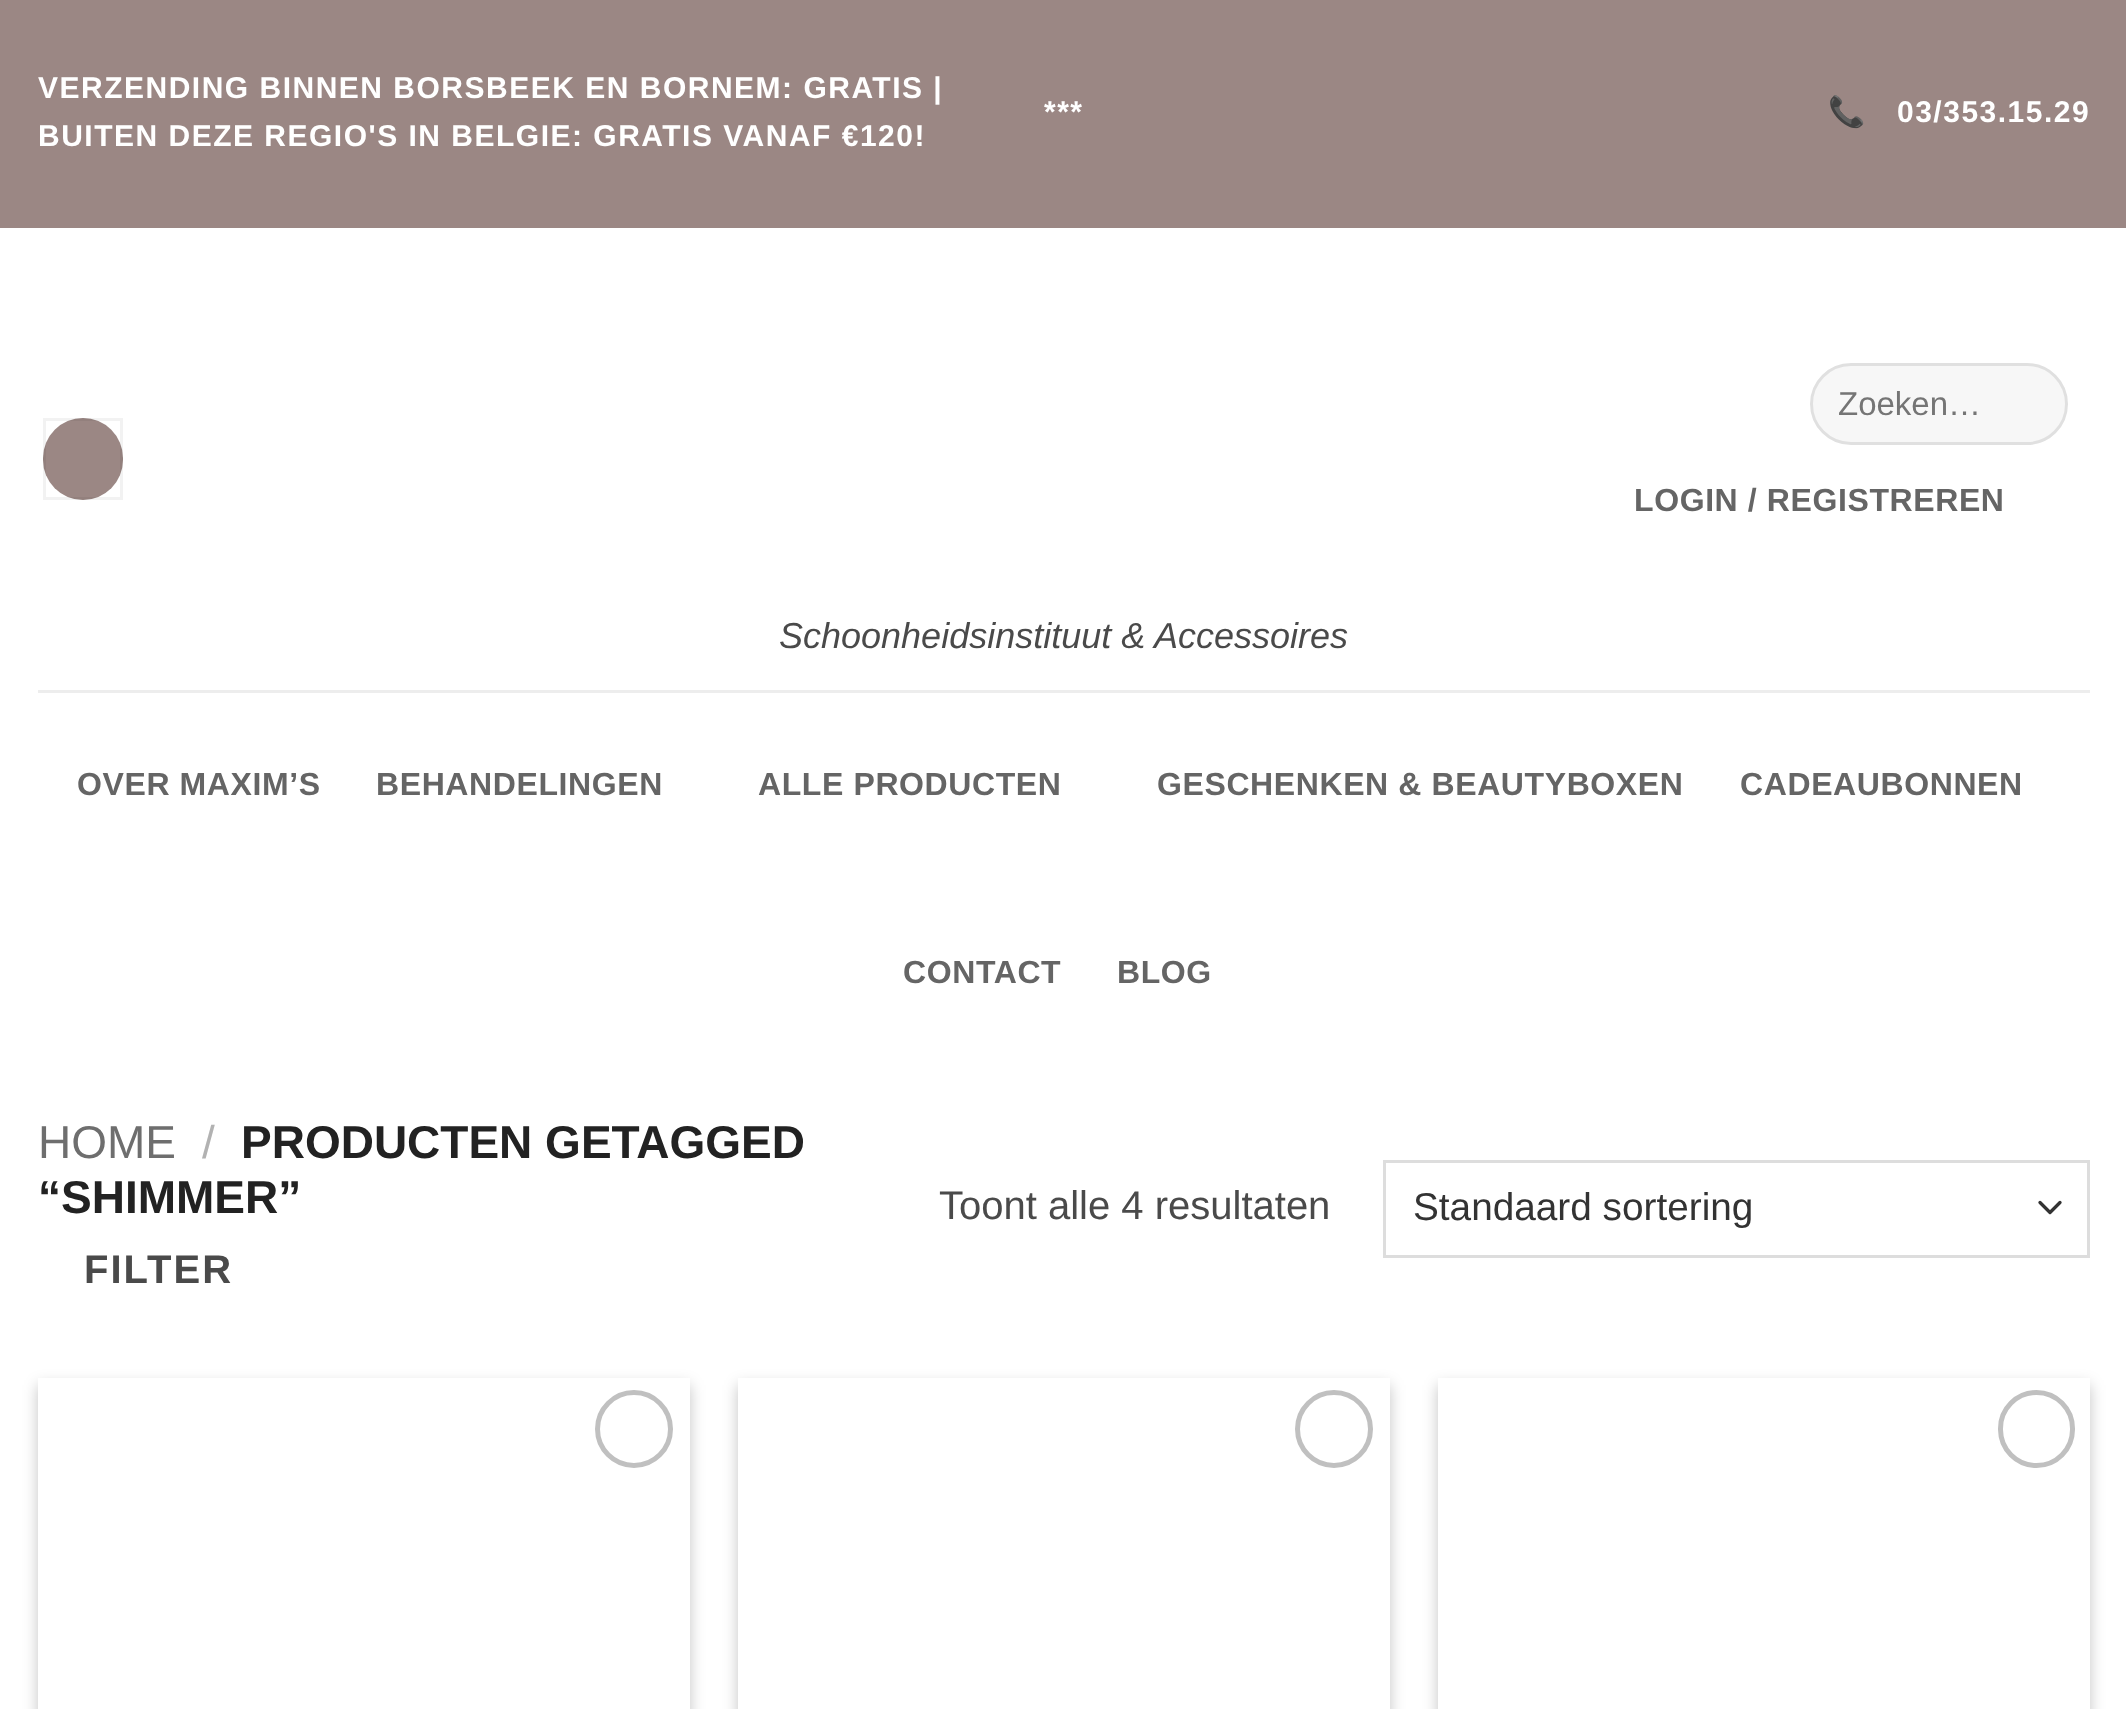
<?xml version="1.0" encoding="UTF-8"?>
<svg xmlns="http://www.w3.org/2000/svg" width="2126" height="1709">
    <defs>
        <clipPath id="clip1"><path d="M 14 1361 H 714 V 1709 H 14 Z M 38 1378 H 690 V 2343 H 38 Z" clip-rule="evenodd"/></clipPath>
        <filter id="blur1" x="-50%" y="-200%" width="200%" height="500%"><feGaussianBlur stdDeviation="7.5"/></filter>
        <clipPath id="clip2"><path d="M 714 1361 H 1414 V 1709 H 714 Z M 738 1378 H 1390 V 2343 H 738 Z" clip-rule="evenodd"/></clipPath>
        <clipPath id="clip3"><path d="M 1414 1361 H 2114 V 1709 H 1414 Z M 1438 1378 H 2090 V 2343 H 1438 Z" clip-rule="evenodd"/></clipPath>
    </defs>
    <rect width="100%" height="100%" fill="#FFFFFF"/>
    <rect x="0" y="0" width="2126" height="228" fill="#9B8784"/>
    <text font-family="Liberation Sans" font-size="30" font-weight="700" letter-spacing="1.5" fill="#FFFFFF">
        <tspan x="38" y="98">VERZENDING BINNEN BORSBEEK EN BORNEM: GRATIS |</tspan>
        <tspan x="38" y="146">BUITEN DEZE REGIO'S IN BELGIE: GRATIS VANAF €120!</tspan>
    </text>
    <text x="1044" y="122" font-family="Liberation Sans" font-size="30" font-weight="700" letter-spacing="1.5" fill="#FFFFFF">***</text>
    <text x="1828" y="122" font-family="Noto Color Emoji" font-size="30" font-weight="700" letter-spacing="1.5" fill="#FFFFFF">📞</text>
    <text x="1897" y="122" font-family="Liberation Sans" font-size="30" font-weight="700" letter-spacing="1.5" fill="#FFFFFF">03/353.15.29</text>
    <rect x="43" y="418" width="80" height="82" rx="40" fill="#9B8784"/>
    <rect x="44.5" y="419.5" width="77" height="79" fill="none" stroke="#000000" stroke-opacity="0.05" stroke-width="3"/>
    <rect x="1810" y="363" width="258" height="82" rx="41" fill="#F7F7F7"/>
    <rect x="1811.5" y="364.5" width="255" height="79" rx="39.5" fill="none" stroke="#000000" stroke-opacity="0.09" stroke-width="3"/>
    <text x="1838" y="415" font-family="Liberation Sans" font-size="33" fill="#757575">Zoeken…</text>
    <text x="1634" y="511" font-family="Liberation Sans" font-size="32" font-weight="700" letter-spacing="0.6" fill="#656565">LOGIN / REGISTREREN</text>
    <text x="779" y="648" font-family="Liberation Sans" font-size="36" font-style="italic" fill="#4A4A4A">Schoonheidsinstituut &amp; Accessoires</text>
    <rect x="38" y="690" width="2052" height="3" fill="#EDEDED"/>
    <text x="77" y="795" font-family="Liberation Sans" font-size="32" font-weight="700" letter-spacing="0.6" fill="#656565">OVER MAXIM’S</text>
    <text x="376" y="795" font-family="Liberation Sans" font-size="32" font-weight="700" letter-spacing="0.6" fill="#656565">BEHANDELINGEN</text>
    <text x="758" y="795" font-family="Liberation Sans" font-size="32" font-weight="700" letter-spacing="0.6" fill="#656565">ALLE PRODUCTEN</text>
    <text x="1157" y="795" font-family="Liberation Sans" font-size="32" font-weight="700" letter-spacing="0.6" fill="#656565">GESCHENKEN &amp; BEAUTYBOXEN</text>
    <text x="1740" y="795" font-family="Liberation Sans" font-size="32" font-weight="700" letter-spacing="0.6" fill="#656565">CADEAUBONNEN</text>
    <text x="903" y="983" font-family="Liberation Sans" font-size="32" font-weight="700" letter-spacing="0.6" fill="#656565">CONTACT</text>
    <text x="1117" y="983" font-family="Liberation Sans" font-size="32" font-weight="700" letter-spacing="0.6" fill="#656565">BLOG</text>
    <text x="38" y="1158" font-family="Liberation Sans" font-size="46" fill="#6E6E6E">HOME</text>
    <text x="202" y="1158" font-family="Liberation Sans" font-size="46" fill="#B2B2B2">/</text>
    <text x="241" y="1158" font-family="Liberation Sans" font-size="46" font-weight="700" fill="#222222">PRODUCTEN GETAGGED</text>
    <text x="38" y="1213" font-family="Liberation Sans" font-size="46" font-weight="700" fill="#222222">“SHIMMER”</text>
    <text x="84" y="1283" font-family="Liberation Sans" font-size="40" font-weight="700" letter-spacing="2" fill="#4A4A4A">FILTER</text>
    <text x="939" y="1219" font-family="Liberation Sans" font-size="40" fill="#4A4A4A">Toont alle 4 resultaten</text>
    <path d="M 2040 1202.5 L 2050 1212.5 L 2060 1202.5" fill="none" stroke="#333333" stroke-width="3.3" stroke-linecap="round" stroke-linejoin="round"/>
    <rect x="1384.5" y="1161.5" width="704" height="95" fill="none" stroke="#DDDDDD" stroke-width="3"/>
    <text x="1413" y="1220" font-family="Liberation Sans" font-size="38.75" fill="#333333">Standaard sortering</text>
    <g clip-path="url(#clip1)">
        <rect x="38" y="1385" width="652" height="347" fill="#000000" fill-opacity="0.23" filter="url(#blur1)"/>
    </g>
    <circle cx="634" cy="1429" r="36.5" fill="none" stroke="#C0C0C0" stroke-width="5"/>
    <g clip-path="url(#clip2)">
        <rect x="738" y="1385" width="652" height="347" fill="#000000" fill-opacity="0.23" filter="url(#blur1)"/>
    </g>
    <circle cx="1334" cy="1429" r="36.5" fill="none" stroke="#C0C0C0" stroke-width="5"/>
    <g clip-path="url(#clip3)">
        <rect x="1438" y="1385" width="652" height="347" fill="#000000" fill-opacity="0.23" filter="url(#blur1)"/>
    </g>
    <rect x="2000.5" y="1392.5" width="72" height="73" rx="36" fill="none" stroke="#C0C0C0" stroke-width="5"/>
</svg>
